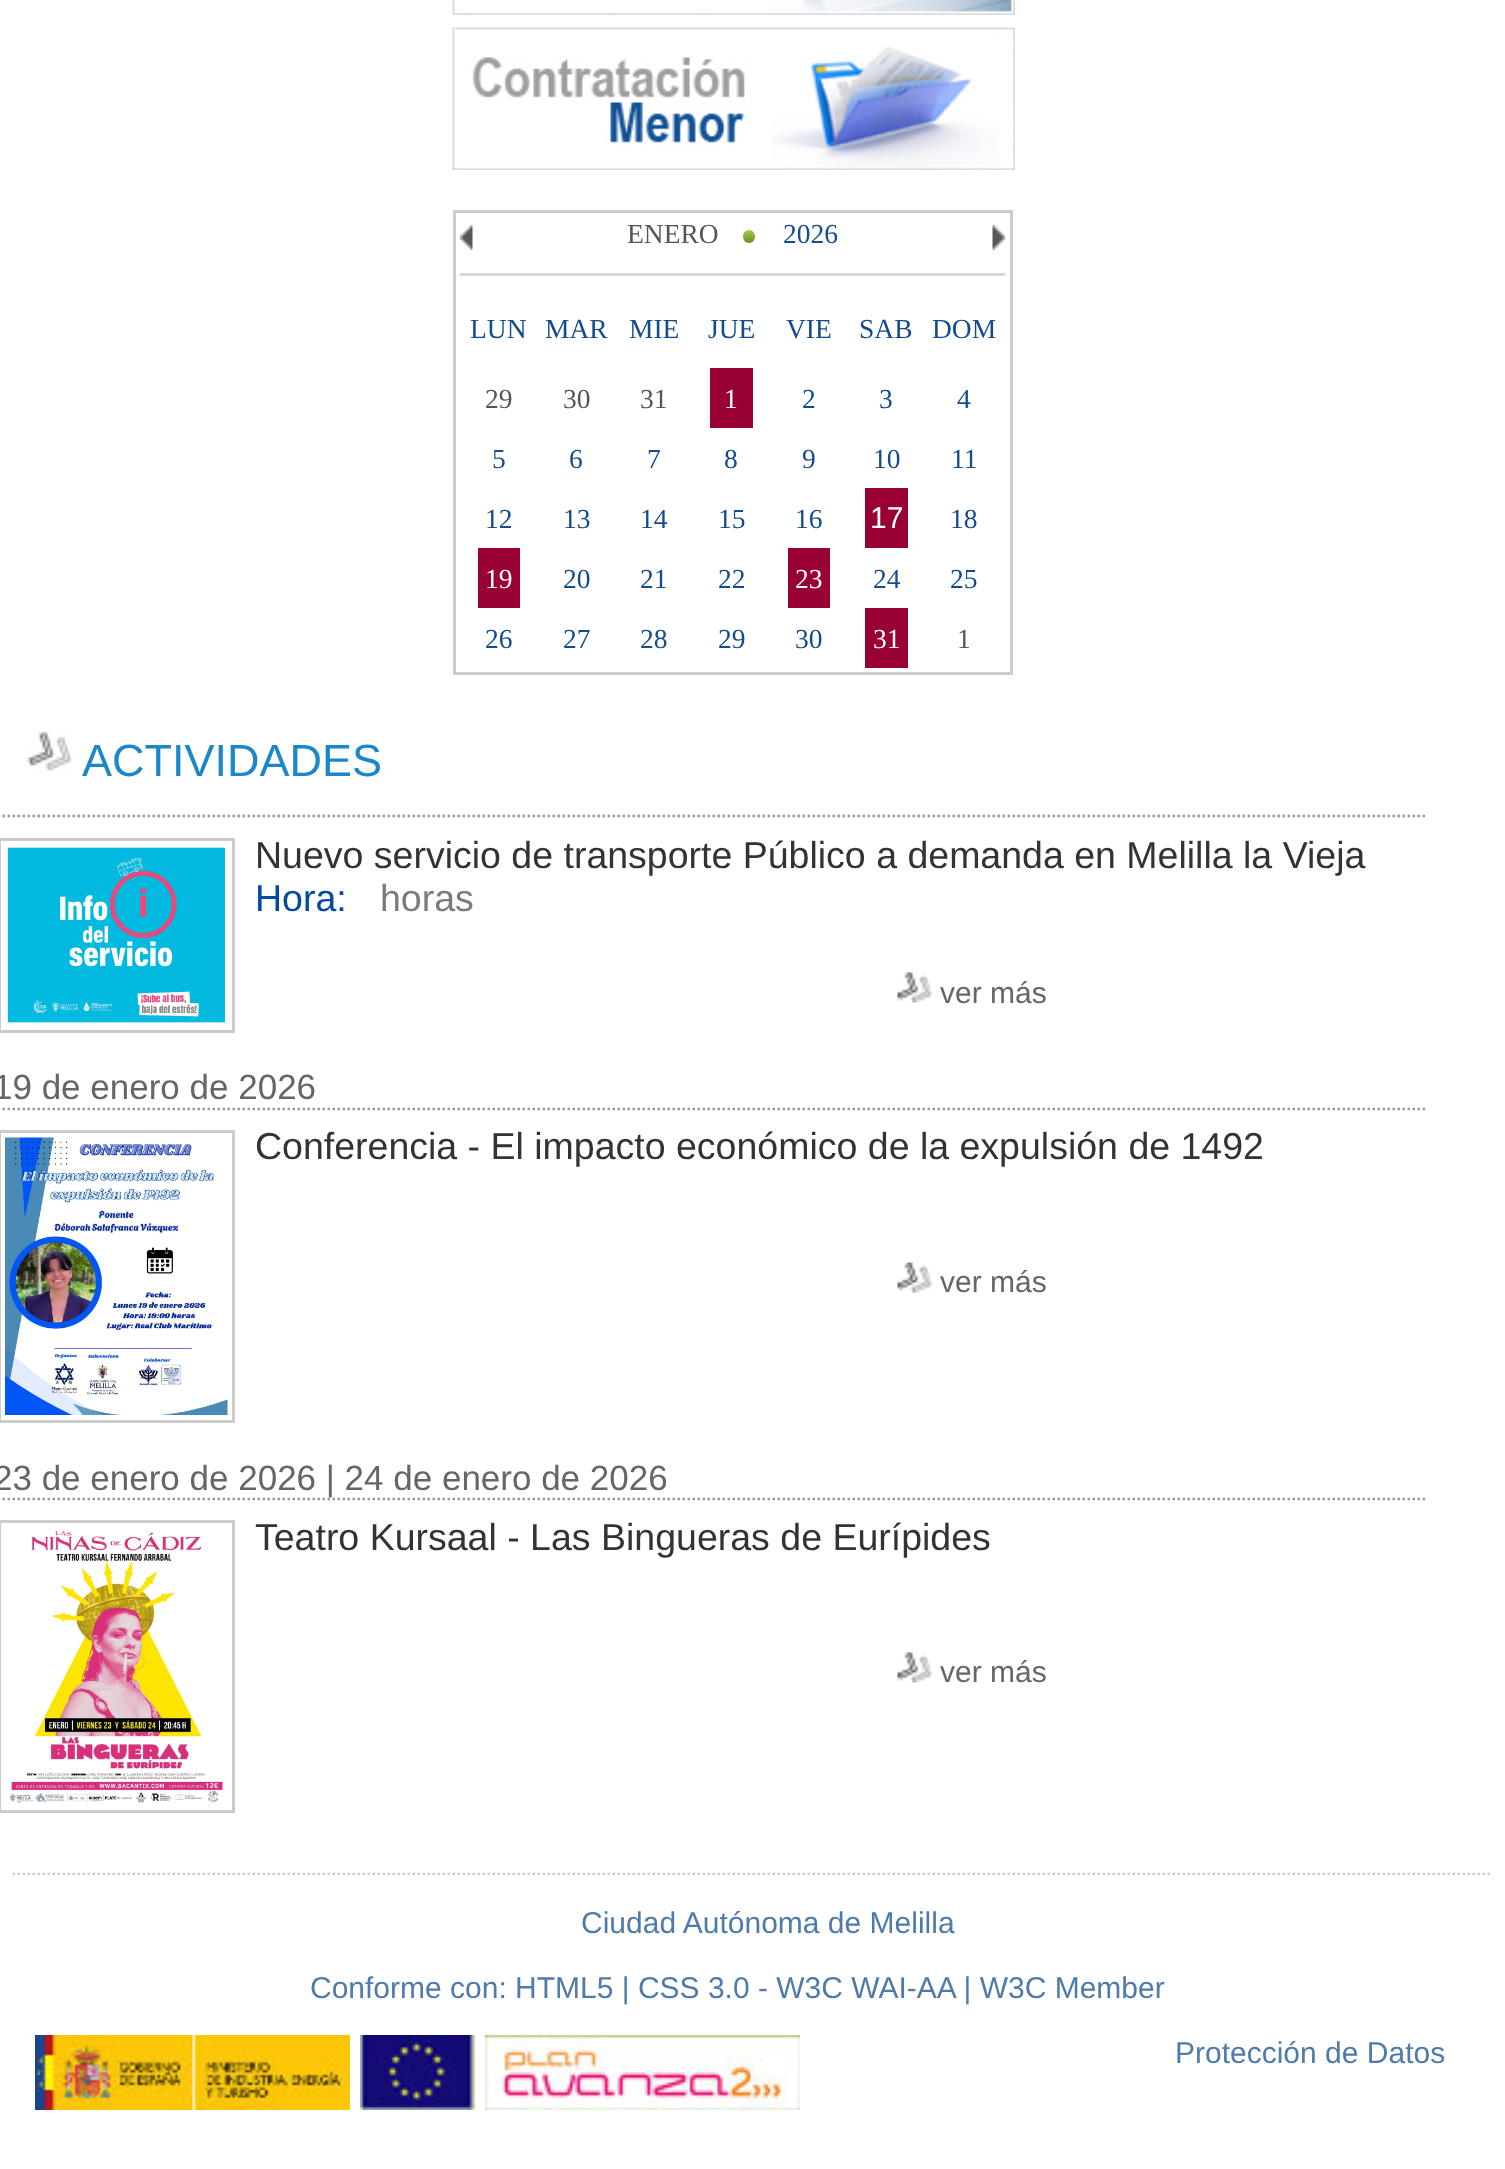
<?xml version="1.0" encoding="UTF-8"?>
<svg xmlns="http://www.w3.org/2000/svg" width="1505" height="2169">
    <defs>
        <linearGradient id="g1" gradientUnits="userSpaceOnUse" x1="749" y1="230" x2="749" y2="243"><stop offset="0" stop-color="#A5CD4E"/><stop offset="1" stop-color="#6B8F1A"/></linearGradient>
    </defs>
    <rect width="100%" height="100%" fill="#FFFFFF"/>
    <image x="452" y="0" width="563" height="15" href="img_01.png"/>
    <image x="452" y="27" width="563" height="143" href="img_02.png"/>
    <rect x="454.5" y="211.5" width="557" height="462" fill="none" stroke="#CCCCCC" stroke-width="3"/>
    <rect x="460" y="273" width="545" height="3" fill="#D6D6D6"/>
    <image x="460" y="225" width="13" height="25" href="img_03.png"/>
    <text x="627" y="243" font-family="Liberation Serif" font-size="27.5" fill="#565656">ENERO</text>
    <rect x="743" y="230" width="12" height="13" rx="6" fill="url(#g1)"/>
    <text x="783" y="243" font-family="Liberation Serif" font-size="27.5" fill="#144B8E">2026</text>
    <image x="992" y="225" width="13" height="25" href="img_04.png"/>
    <text x="470" y="338" font-family="Liberation Serif" font-size="27.5" fill="#144B8E">LUN</text>
    <text x="545" y="338" font-family="Liberation Serif" font-size="27.5" fill="#144B8E">MAR</text>
    <text x="629" y="338" font-family="Liberation Serif" font-size="27.5" fill="#144B8E">MIE</text>
    <text x="708" y="338" font-family="Liberation Serif" font-size="27.5" fill="#144B8E">JUE</text>
    <text x="786" y="338" font-family="Liberation Serif" font-size="27.5" fill="#144B8E">VIE</text>
    <text x="859" y="338" font-family="Liberation Serif" font-size="27.5" fill="#144B8E">SAB</text>
    <text x="932" y="338" font-family="Liberation Serif" font-size="27.5" fill="#144B8E">DOM</text>
    <text x="485" y="408" font-family="Liberation Serif" font-size="27.5" fill="#565656">29</text>
    <text x="563" y="408" font-family="Liberation Serif" font-size="27.5" fill="#565656">30</text>
    <text x="640" y="408" font-family="Liberation Serif" font-size="27.5" fill="#565656">31</text>
    <rect x="710" y="368" width="43" height="60" fill="#990033"/>
    <text x="724" y="408" font-family="Liberation Serif" font-size="27.5" fill="#FFFFFF">1</text>
    <text x="802" y="408" font-family="Liberation Serif" font-size="27.5" fill="#144B8E">2</text>
    <text x="879" y="408" font-family="Liberation Serif" font-size="27.5" fill="#144B8E">3</text>
    <text x="957" y="408" font-family="Liberation Serif" font-size="27.5" fill="#144B8E">4</text>
    <text x="492" y="468" font-family="Liberation Serif" font-size="27.5" fill="#144B8E">5</text>
    <text x="569" y="468" font-family="Liberation Serif" font-size="27.5" fill="#144B8E">6</text>
    <text x="647" y="468" font-family="Liberation Serif" font-size="27.5" fill="#144B8E">7</text>
    <text x="724" y="468" font-family="Liberation Serif" font-size="27.5" fill="#144B8E">8</text>
    <text x="802" y="468" font-family="Liberation Serif" font-size="27.5" fill="#144B8E">9</text>
    <text x="873" y="468" font-family="Liberation Serif" font-size="27.5" fill="#144B8E">10</text>
    <text x="951" y="468" font-family="Liberation Serif" font-size="27.5" fill="#144B8E">11</text>
    <text x="485" y="528" font-family="Liberation Serif" font-size="27.5" fill="#144B8E">12</text>
    <text x="563" y="528" font-family="Liberation Serif" font-size="27.5" fill="#144B8E">13</text>
    <text x="640" y="528" font-family="Liberation Serif" font-size="27.5" fill="#144B8E">14</text>
    <text x="718" y="528" font-family="Liberation Serif" font-size="27.5" fill="#144B8E">15</text>
    <text x="795" y="528" font-family="Liberation Serif" font-size="27.5" fill="#144B8E">16</text>
    <rect x="865" y="488" width="43" height="60" fill="#990033"/>
    <text x="870" y="528" font-family="Liberation Sans" font-size="30" fill="#FFFFFF">17</text>
    <text x="950" y="528" font-family="Liberation Serif" font-size="27.5" fill="#144B8E">18</text>
    <rect x="478" y="548" width="42" height="60" fill="#990033"/>
    <text x="485" y="588" font-family="Liberation Serif" font-size="27.5" fill="#FFFFFF">19</text>
    <text x="563" y="588" font-family="Liberation Serif" font-size="27.5" fill="#144B8E">20</text>
    <text x="640" y="588" font-family="Liberation Serif" font-size="27.5" fill="#144B8E">21</text>
    <text x="718" y="588" font-family="Liberation Serif" font-size="27.5" fill="#144B8E">22</text>
    <rect x="788" y="548" width="42" height="60" fill="#990033"/>
    <text x="795" y="588" font-family="Liberation Serif" font-size="27.5" fill="#FFFFFF">23</text>
    <text x="873" y="588" font-family="Liberation Serif" font-size="27.5" fill="#144B8E">24</text>
    <text x="950" y="588" font-family="Liberation Serif" font-size="27.5" fill="#144B8E">25</text>
    <text x="485" y="648" font-family="Liberation Serif" font-size="27.5" fill="#144B8E">26</text>
    <text x="563" y="648" font-family="Liberation Serif" font-size="27.5" fill="#144B8E">27</text>
    <text x="640" y="648" font-family="Liberation Serif" font-size="27.5" fill="#144B8E">28</text>
    <text x="718" y="648" font-family="Liberation Serif" font-size="27.5" fill="#144B8E">29</text>
    <text x="795" y="648" font-family="Liberation Serif" font-size="27.5" fill="#144B8E">30</text>
    <rect x="865" y="608" width="43" height="60" fill="#990033"/>
    <text x="873" y="648" font-family="Liberation Serif" font-size="27.5" fill="#FFFFFF">31</text>
    <text x="957" y="648" font-family="Liberation Serif" font-size="27.5" fill="#565656">1</text>
    <image x="27" y="731" width="46" height="40" href="img_05.png"/>
    <text x="82" y="776" font-family="Liberation Sans" font-size="45" fill="#1B87CA">ACTIVIDADES</text>
    <path d="M -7.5 816 H 1427.5" fill="none" stroke="#999999" stroke-width="2.5" stroke-dasharray="2.5 2.5"/>
    <rect x="-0.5" y="839.5" width="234" height="192" fill="none" stroke="#CCCCCC" stroke-width="3"/>
    <image x="7" y="847" width="219" height="176" href="img_06.png"/>
    <text x="255" y="868" font-family="Liberation Sans" font-size="37.5" fill="#333333">Nuevo servicio de transporte Público a demanda en Melilla la Vieja</text>
    <text x="255" y="911" font-family="Liberation Sans" font-size="37.5" fill="#0549A2">Hora:</text>
    <text x="380" y="911" font-family="Liberation Sans" font-size="37.5" fill="#777C82">horas</text>
    <image x="897" y="972" width="36" height="31" href="img_07.png"/>
    <text x="940" y="1003" font-family="Liberation Sans" font-size="30" fill="#666666">ver más</text>
    <path d="M -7.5 1109 H 1427.5" fill="none" stroke="#999999" stroke-width="2.5" stroke-dasharray="2.5 2.5"/>
    <text x="-7" y="1099" font-family="Liberation Sans" font-size="35" fill="#666666">19 de enero de 2026</text>
    <rect x="-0.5" y="1131.5" width="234" height="290" fill="none" stroke="#CCCCCC" stroke-width="3"/>
    <image x="5" y="1137" width="223" height="278" href="img_08.png"/>
    <text x="255" y="1159" font-family="Liberation Sans" font-size="37.5" fill="#333333">Conferencia - El impacto económico de la expulsión de 1492</text>
    <image x="897" y="1262" width="36" height="31" href="img_07.png"/>
    <text x="940" y="1292" font-family="Liberation Sans" font-size="30" fill="#666666">ver más</text>
    <path d="M -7.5 1499 H 1427.5" fill="none" stroke="#999999" stroke-width="2.5" stroke-dasharray="2.5 2.5"/>
    <text x="-7" y="1490" font-family="Liberation Sans" font-size="35" fill="#666666">23 de enero de 2026 | 24 de enero de 2026</text>
    <rect x="-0.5" y="1521.5" width="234" height="290" fill="none" stroke="#CCCCCC" stroke-width="3"/>
    <image x="9" y="1530" width="214" height="273" href="img_09.png"/>
    <text x="255" y="1550" font-family="Liberation Sans" font-size="37.5" fill="#333333">Teatro Kursaal - Las Bingueras de Eurípides</text>
    <image x="897" y="1652" width="36" height="31" href="img_07.png"/>
    <text x="940" y="1682" font-family="Liberation Sans" font-size="30" fill="#666666">ver más</text>
    <path d="M 12.5 1874 H 1492.5" fill="none" stroke="#CCCCCC" stroke-width="2.5" stroke-dasharray="2.5 2.5"/>
    <rect x="13" y="1875" width="1477" height="1" fill="#FFFFFF"/>
    <text x="581" y="1933" font-family="Liberation Sans" font-size="30" fill="#4E7BAA">Ciudad Autónoma de Melilla</text>
    <text x="310" y="1998" font-family="Liberation Sans" font-size="30" fill="#4E7BAA">Conforme con: HTML5 | CSS 3.0 - W3C WAI-AA | W3C Member</text>
    <image x="35" y="2035" width="315" height="75" href="img_10.png"/>
    <image x="360" y="2035" width="115" height="75" href="img_11.png"/>
    <image x="485" y="2035" width="315" height="75" href="img_12.png"/>
    <text x="1175" y="2063" font-family="Liberation Sans" font-size="30" fill="#4E7BAA">Protección de Datos</text>
</svg>
